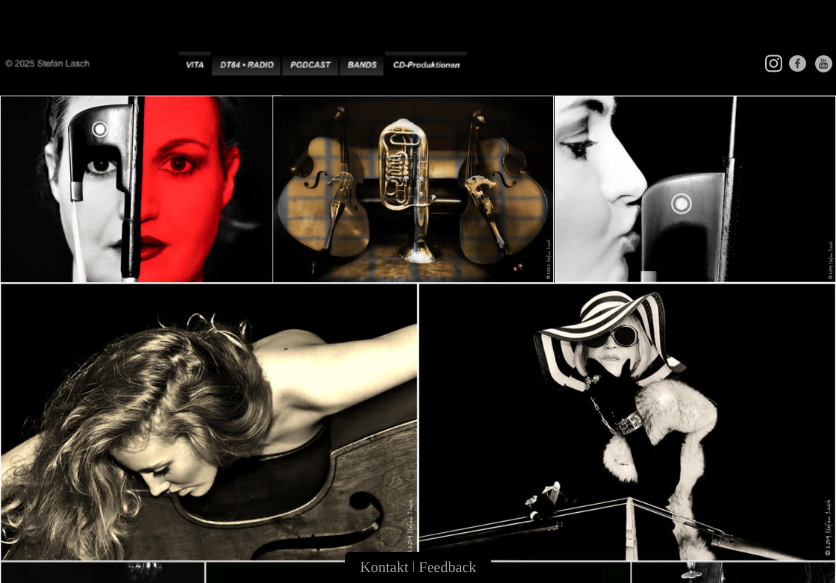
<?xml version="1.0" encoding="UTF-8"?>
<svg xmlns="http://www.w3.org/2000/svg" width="836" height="583">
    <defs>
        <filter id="blur1" x="-50%" y="-200%" width="200%" height="500%"><feGaussianBlur stdDeviation="2.5"/></filter>
    </defs>
    <rect width="100%" height="100%" fill="#000000"/>
    <image x="178" y="51" width="33" height="18" href="img_01.png"/>
    <image x="211" y="56" width="71" height="20" href="img_07.png"/>
    <image x="280" y="56" width="59" height="20" href="img_08.png"/>
    <image x="338" y="56" width="47" height="20" href="img_09.png"/>
    <image x="383" y="51" width="84" height="25" href="img_02.png"/>
    <image x="765" y="54" width="18" height="19" href="img_03.png"/>
    <image x="789" y="55" width="18" height="17" href="img_04.png"/>
    <image x="815" y="55" width="18" height="18" href="img_05.png"/>
    <image x="5" y="59" width="85" height="9" href="img_06.png"/>
    <image x="0" y="95" width="282" height="188" href="img_10.png"/>
    <image x="272" y="95" width="282" height="188" href="img_11.png"/>
    <image x="554" y="95" width="282" height="188" href="img_12.png"/>
    <image x="0" y="561" width="836" height="22" href="img_15.png"/>
    <image x="0" y="282" width="418" height="280" href="img_13.png"/>
    <image x="418" y="282" width="418" height="280" href="img_14.png"/>
    <image x="205" y="561" width="427" height="22" href="img_17.png"/>
    <image x="0" y="561" width="206" height="22" href="img_16.png"/>
    <image x="630" y="561" width="206" height="22" href="img_18.png"/>
    <rect x="345" y="552" width="146" height="31" rx="5" fill="#000000" fill-opacity="0.3" filter="url(#blur1)"/>
    <path d="M 350 552 H 486 C 489 552 491 554 491 557 V 583 H 345 V 557 C 345 554 347 552 350 552 Z" fill="#000000"/>
    <text x="360" y="572" font-family="Liberation Serif" font-size="15" fill="#9B9B9B">Kontakt ǀ Feedback</text>
</svg>
